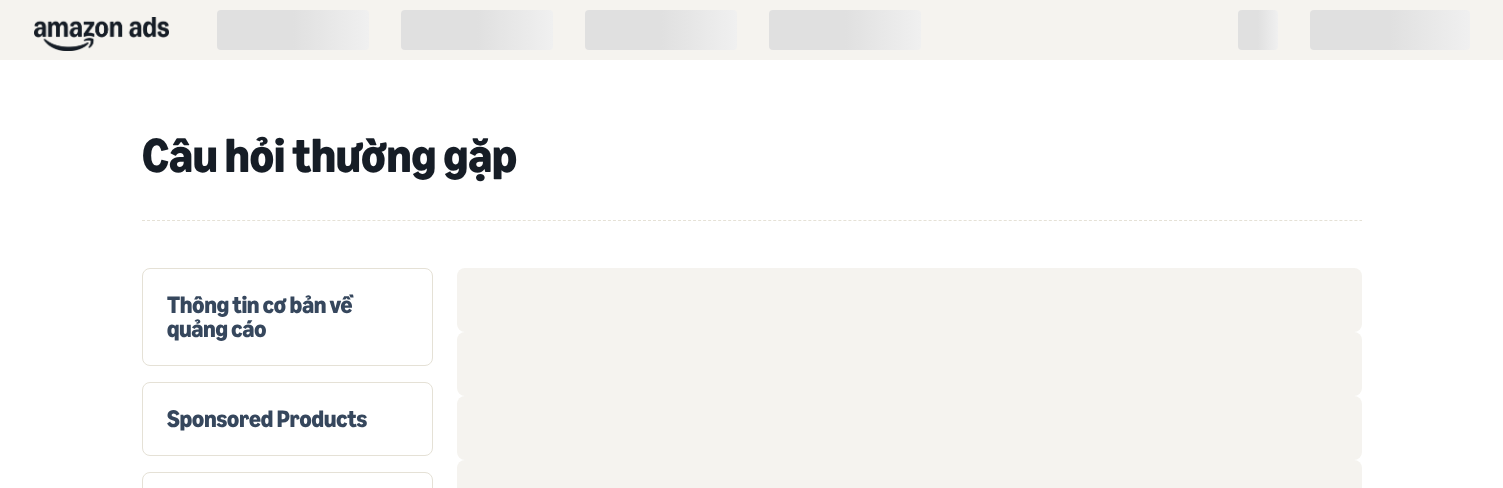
<?xml version="1.0" encoding="UTF-8"?>
<svg xmlns="http://www.w3.org/2000/svg" width="1503" height="488">
    <defs>
        <linearGradient id="g1" gradientUnits="userSpaceOnUse" x1="217" y1="30" x2="521" y2="30"><stop offset="0.25" stop-color="#E0E0E0"/><stop offset="0.5" stop-color="#F0F0F0"/><stop offset="0.75" stop-color="#E0E0E0"/></linearGradient>
        <linearGradient id="g2" gradientUnits="userSpaceOnUse" x1="401" y1="30" x2="705" y2="30"><stop offset="0.25" stop-color="#E0E0E0"/><stop offset="0.5" stop-color="#F0F0F0"/><stop offset="0.75" stop-color="#E0E0E0"/></linearGradient>
        <linearGradient id="g3" gradientUnits="userSpaceOnUse" x1="585" y1="30" x2="889" y2="30"><stop offset="0.25" stop-color="#E0E0E0"/><stop offset="0.5" stop-color="#F0F0F0"/><stop offset="0.75" stop-color="#E0E0E0"/></linearGradient>
        <linearGradient id="g4" gradientUnits="userSpaceOnUse" x1="769" y1="30" x2="1073" y2="30"><stop offset="0.25" stop-color="#E0E0E0"/><stop offset="0.5" stop-color="#F0F0F0"/><stop offset="0.75" stop-color="#E0E0E0"/></linearGradient>
        <linearGradient id="g5" gradientUnits="userSpaceOnUse" x1="1238" y1="30" x2="1318" y2="30"><stop offset="0.25" stop-color="#E0E0E0"/><stop offset="0.5" stop-color="#F0F0F0"/><stop offset="0.75" stop-color="#E0E0E0"/></linearGradient>
        <linearGradient id="g6" gradientUnits="userSpaceOnUse" x1="1310" y1="30" x2="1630" y2="30"><stop offset="0.25" stop-color="#E0E0E0"/><stop offset="0.5" stop-color="#F0F0F0"/><stop offset="0.75" stop-color="#E0E0E0"/></linearGradient>
        <clipPath id="clip1"><rect x="167" y="293" width="241" height="48"/></clipPath>
    </defs>
    <rect width="100%" height="100%" fill="#FFFFFF"/>
    <rect x="0" y="0" width="1503" height="60" fill="#F5F3EF"/>
    <image x="34" y="17" width="135" height="34" href="img_01.png"/>
    <rect x="217" y="10" width="152" height="40" rx="4" fill="url(#g1)"/>
    <rect x="401" y="10" width="152" height="40" rx="4" fill="url(#g2)"/>
    <rect x="585" y="10" width="152" height="40" rx="4" fill="url(#g3)"/>
    <rect x="769" y="10" width="152" height="40" rx="4" fill="url(#g4)"/>
    <rect x="1238" y="10" width="40" height="40" rx="4" fill="url(#g5)"/>
    <rect x="1310" y="10" width="160" height="40" rx="4" fill="url(#g6)"/>
    <text x="142" y="172" font-family="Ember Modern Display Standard" font-size="48" font-weight="700" letter-spacing="0.3" fill="#161D26">Câu hỏi thường gặp</text>
    <path d="M 142 220.5 H 1362" fill="none" stroke="#E5E1D6" stroke-dasharray="3 2.01"/>
    <rect x="142.5" y="268.5" width="290" height="97" rx="7.5" fill="none" stroke="#E5E1D6"/>
    <g clip-path="url(#clip1)">
        <text x="167" y="313" font-family="Ember Modern Display Standard" font-size="24" font-weight="700" fill="#36475D">Thông tin cơ bản về</text>
    </g>
    <text x="167" y="337" font-family="Ember Modern Display Standard" font-size="24" font-weight="700" fill="#36475D">quảng cáo</text>
    <rect x="142.5" y="382.5" width="290" height="73" rx="7.5" fill="none" stroke="#E5E1D6"/>
    <text x="167" y="427" font-family="Ember Modern Display Standard" font-size="24" font-weight="700" fill="#36475D">Sponsored Products</text>
    <rect x="142.5" y="472.5" width="290" height="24" rx="7.5" fill="none" stroke="#E5E1D6"/>
    <rect x="457" y="268" width="905" height="64" rx="8" fill="#F5F3EF"/>
    <rect x="457" y="332" width="905" height="64" rx="8" fill="#F5F3EF"/>
    <rect x="457" y="396" width="905" height="64" rx="8" fill="#F5F3EF"/>
    <rect x="457" y="460" width="905" height="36" rx="8" fill="#F5F3EF"/>
</svg>
